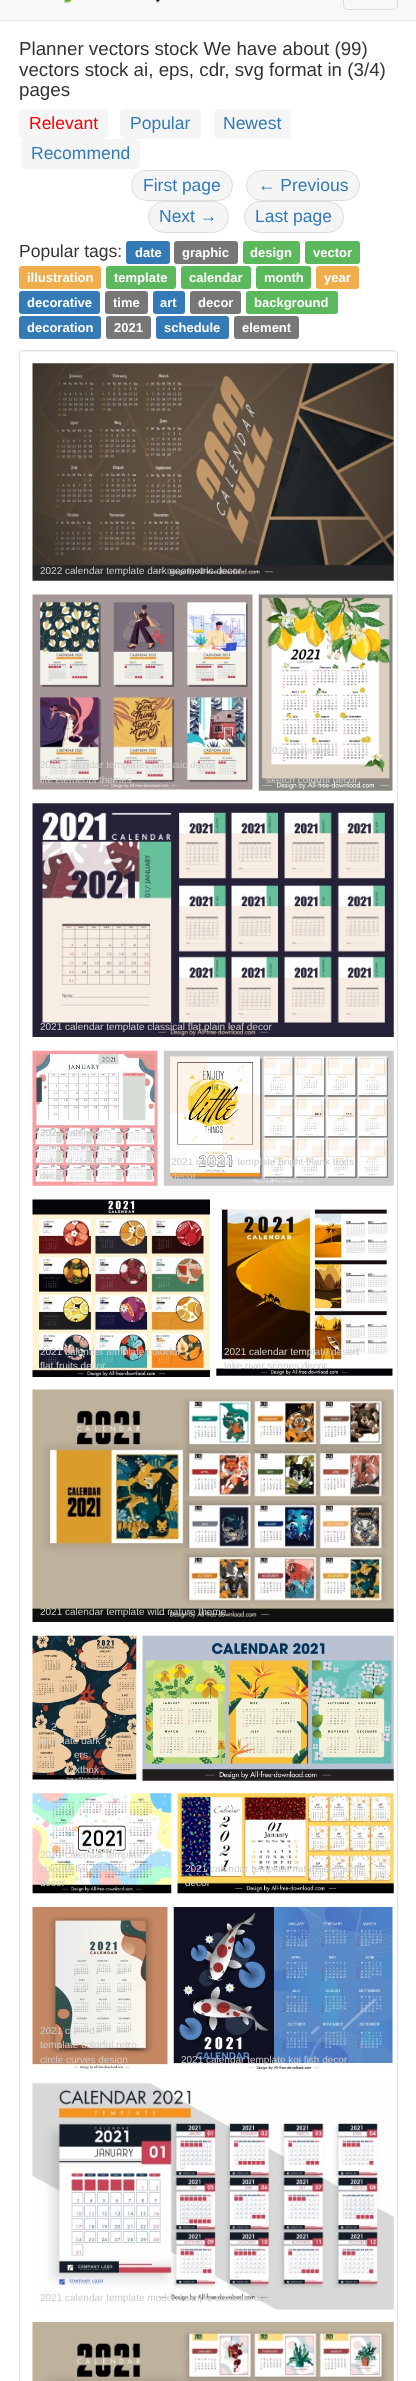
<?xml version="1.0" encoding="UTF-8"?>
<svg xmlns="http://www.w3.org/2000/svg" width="416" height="2381">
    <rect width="100%" height="100%" fill="#FFFFFF"/>
    <rect x="0" y="0" width="416" height="20" fill="#F8F8F8"/>
    <rect x="0" y="20" width="416" height="1" fill="#E7E7E7"/>
    <image x="63" y="0" width="97" height="3" href="img_01.png"/>
    <rect x="343.5" y="-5.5" width="54" height="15" rx="4.5" fill="none" stroke="#DDDDDD"/>
    <text font-family="Liberation Sans" font-size="18.75" fill="#333333">
        <tspan x="19" y="55">Planner vectors stock We have about (99)</tspan>
        <tspan x="19" y="76">vectors stock ai, eps, cdr, svg format in (3/4)</tspan>
        <tspan x="19" y="96">pages</tspan>
    </text>
    <rect x="19" y="109" width="89" height="30" rx="5" fill="#F5F5F5"/>
    <text x="29" y="129" font-family="Liberation Sans" font-size="17.5" fill="#FF0000">Relevant</text>
    <rect x="120" y="109" width="81" height="30" rx="5" fill="#F5F5F5"/>
    <text x="130" y="129" font-family="Liberation Sans" font-size="17.5" fill="#337AB7">Popular</text>
    <rect x="214" y="109" width="77" height="30" rx="5" fill="#F5F5F5"/>
    <text x="223" y="129" font-family="Liberation Sans" font-size="17.5" fill="#337AB7">Newest</text>
    <rect x="21" y="139" width="119" height="30" rx="5" fill="#F5F5F5"/>
    <text x="31" y="159" font-family="Liberation Sans" font-size="17.5" fill="#337AB7">Recommend</text>
    <rect x="131.5" y="170.5" width="101" height="30" rx="15" fill="#F5F5F5" stroke="#DDDDDD"/>
    <text x="143" y="191" font-family="Liberation Sans" font-size="17.5" fill="#337AB7">First page</text>
    <rect x="246.5" y="170.5" width="113" height="30" rx="15" fill="#F5F5F5" stroke="#DDDDDD"/>
    <text x="258" y="191" font-family="Liberation Sans" font-size="17.5" fill="#337AB7">← Previous</text>
    <rect x="148.5" y="201.5" width="80" height="31" rx="15.5" fill="#F5F5F5" stroke="#DDDDDD"/>
    <text x="159" y="222" font-family="Liberation Sans" font-size="17.5" fill="#337AB7">Next →</text>
    <rect x="244.5" y="201.5" width="99" height="31" rx="15.5" fill="#F5F5F5" stroke="#DDDDDD"/>
    <text x="255" y="222" font-family="Liberation Sans" font-size="17.5" fill="#337AB7">Last page</text>
    <text x="19" y="257" font-family="Liberation Sans" font-size="17.5" fill="#333333">Popular tags:</text>
    <rect x="126" y="241" width="44" height="23" rx="3" fill="#337AB7"/>
    <text x="135" y="257" font-family="Liberation Sans" font-size="13" font-weight="700" fill="#FFFFFF">date</text>
    <rect x="174" y="241" width="64" height="23" rx="3" fill="#777777"/>
    <text x="182" y="257" font-family="Liberation Sans" font-size="13" font-weight="700" fill="#FFFFFF">graphic</text>
    <rect x="243" y="241" width="57" height="23" rx="3" fill="#5CB85C"/>
    <text x="250" y="257" font-family="Liberation Sans" font-size="13" font-weight="700" fill="#FFFFFF">design</text>
    <rect x="305" y="241" width="55" height="23" rx="3" fill="#5CB85C"/>
    <text x="313" y="257" font-family="Liberation Sans" font-size="13" font-weight="700" fill="#FFFFFF">vector</text>
    <rect x="19" y="266" width="82" height="23" rx="3" fill="#F0AD4E"/>
    <text x="27" y="282" font-family="Liberation Sans" font-size="13" font-weight="700" fill="#FFFFFF">illustration</text>
    <rect x="106" y="266" width="70" height="23" rx="3" fill="#5CB85C"/>
    <text x="114" y="282" font-family="Liberation Sans" font-size="13" font-weight="700" fill="#FFFFFF">template</text>
    <rect x="181" y="266" width="70" height="23" rx="3" fill="#5CB85C"/>
    <text x="189" y="282" font-family="Liberation Sans" font-size="13" font-weight="700" fill="#FFFFFF">calendar</text>
    <rect x="256" y="266" width="55" height="23" rx="3" fill="#5CB85C"/>
    <text x="264" y="282" font-family="Liberation Sans" font-size="13" font-weight="700" fill="#FFFFFF">month</text>
    <rect x="316" y="266" width="43" height="23" rx="3" fill="#F0AD4E"/>
    <text x="324" y="282" font-family="Liberation Sans" font-size="13" font-weight="700" fill="#FFFFFF">year</text>
    <rect x="19" y="291" width="81" height="23" rx="3" fill="#337AB7"/>
    <text x="27" y="307" font-family="Liberation Sans" font-size="13" font-weight="700" fill="#FFFFFF">decorative</text>
    <rect x="105" y="291" width="43" height="23" rx="3" fill="#777777"/>
    <text x="113" y="307" font-family="Liberation Sans" font-size="13" font-weight="700" fill="#FFFFFF">time</text>
    <rect x="153" y="291" width="32" height="23" rx="3" fill="#337AB7"/>
    <text x="160" y="307" font-family="Liberation Sans" font-size="13" font-weight="700" fill="#FFFFFF">art</text>
    <rect x="190" y="291" width="51" height="23" rx="3" fill="#777777"/>
    <text x="198" y="307" font-family="Liberation Sans" font-size="13" font-weight="700" fill="#FFFFFF">decor</text>
    <rect x="246" y="291" width="92" height="23" rx="3" fill="#5CB85C"/>
    <text x="254" y="307" font-family="Liberation Sans" font-size="13" font-weight="700" fill="#FFFFFF">background</text>
    <rect x="19" y="316" width="82" height="23" rx="3" fill="#337AB7"/>
    <text x="27" y="332" font-family="Liberation Sans" font-size="13" font-weight="700" fill="#FFFFFF">decoration</text>
    <rect x="106" y="316" width="45" height="23" rx="3" fill="#777777"/>
    <text x="114" y="332" font-family="Liberation Sans" font-size="13" font-weight="700" fill="#FFFFFF">2021</text>
    <rect x="156" y="316" width="73" height="23" rx="3" fill="#337AB7"/>
    <text x="164" y="332" font-family="Liberation Sans" font-size="13" font-weight="700" fill="#FFFFFF">schedule</text>
    <rect x="234" y="316" width="65" height="23" rx="3" fill="#777777"/>
    <text x="242" y="332" font-family="Liberation Sans" font-size="13" font-weight="700" fill="#FFFFFF">element</text>
    <path d="M 22 352 H 394 C 395 352 396 354 396 355 V 354 C 396 352 395 351 394 351 H 22 C 21 351 20 352 20 354 V 355 C 20 354 21 352 22 352 Z" fill="#F2F2F2"/>
    <rect x="19.5" y="350.5" width="378" height="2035" rx="3.5" fill="none" stroke="#E3E3E3"/>
    <image x="32" y="363" width="362" height="218" href="img_02.png"/>
    <text x="40" y="574" font-family="Liberation Sans" font-size="10" fill="#CCCCCC">2022 calendar template dark geometric decor</text>
    <image x="32" y="594" width="221" height="196" href="img_03.png"/>
    <text font-family="Liberation Sans" font-size="10" fill="#CCCCCC">
        <tspan x="40" y="768">2021 calendar templates classsic decor</tspan>
        <tspan x="40" y="783">life elements themes</tspan>
    </text>
    <image x="258" y="594" width="135" height="197" href="img_04.png"/>
    <text x="272" y="754" font-family="Liberation Sans" font-size="10" fill="#CCCCCC">021 calendar</text>
    <text x="266" y="783" font-family="Liberation Sans" font-size="10" fill="#CCCCCC">sketch colorful decor</text>
    <image x="32" y="803" width="362" height="234" href="img_05.png"/>
    <text x="40" y="1030" font-family="Liberation Sans" font-size="10" fill="#CCCCCC">2021 calendar template classical flat plain leaf decor</text>
    <image x="32" y="1050" width="126" height="136" href="img_06.png"/>
    <text font-family="Liberation Sans" font-size="10" fill="#CCCCCC">
        <tspan x="40" y="1136">2021 calendar</tspan>
        <tspan x="40" y="1150">template bright</tspan>
        <tspan x="40" y="1165">colorful classic flat</tspan>
        <tspan x="40" y="1179">decor</tspan>
    </text>
    <image x="163" y="1050" width="231" height="136" href="img_07.png"/>
    <text font-family="Liberation Sans" font-size="10" fill="#CCCCCC">
        <tspan x="171" y="1165">2021 calendar template bright blank texts</tspan>
        <tspan x="171" y="1179">decor</tspan>
    </text>
    <image x="32" y="1199" width="178" height="178" href="img_08.png"/>
    <text font-family="Liberation Sans" font-size="10" fill="#CCCCCC">
        <tspan x="40" y="1355">2021 calender template colorful</tspan>
        <tspan x="40" y="1369">flat fruits decor</tspan>
    </text>
    <image x="216" y="1209" width="177" height="167" href="img_09.png"/>
    <text font-family="Liberation Sans" font-size="10" fill="#CCCCCC">
        <tspan x="224" y="1355">2021 calendar template desert</tspan>
        <tspan x="224" y="1369">lake river scenes decor</tspan>
    </text>
    <image x="32" y="1389" width="362" height="233" href="img_10.png"/>
    <text x="40" y="1615" font-family="Liberation Sans" font-size="10" fill="#CCCCCC">2021 calendar template wild nature theme</text>
    <image x="32" y="1635" width="105" height="145" href="img_11.png"/>
    <text x="51" y="1730" font-family="Liberation Sans" font-size="10" fill="#CCCCCC">2</text>
    <text x="40" y="1744" font-family="Liberation Sans" font-size="10" fill="#CCCCCC">template dark</text>
    <text x="74" y="1758" font-family="Liberation Sans" font-size="10" fill="#CCCCCC">ers</text>
    <text x="75" y="1773" font-family="Liberation Sans" font-size="10" fill="#CCCCCC">xtbox</text>
    <image x="142" y="1635" width="252" height="146" href="img_12.png"/>
    <image x="32" y="1793" width="140" height="101" href="img_13.png"/>
    <text font-family="Liberation Sans" font-size="10" fill="#CCCCCC">
        <tspan x="40" y="1858">2021 calendar template</tspan>
        <tspan x="40" y="1872">colorful flat abstract</tspan>
        <tspan x="40" y="1886">decor</tspan>
    </text>
    <image x="177" y="1793" width="217" height="101" href="img_14.png"/>
    <text font-family="Liberation Sans" font-size="10" fill="#CCCCCC">
        <tspan x="185" y="1872">2021 calendar template nature elements</tspan>
        <tspan x="185" y="1886">decor</tspan>
    </text>
    <image x="32" y="1907" width="136" height="162" href="img_15.png"/>
    <text x="40" y="2034" font-family="Liberation Sans" font-size="10" fill="#CCCCCC">2021 c</text>
    <text x="89" y="2034" font-family="Liberation Sans" font-size="10" fill="#CCCCCC">d</text>
    <text font-family="Liberation Sans" font-size="10" fill="#CCCCCC">
        <tspan x="40" y="2048">template colorful retro</tspan>
        <tspan x="40" y="2063">circle curves design</tspan>
    </text>
    <image x="173" y="1907" width="220" height="163" href="img_16.png"/>
    <text x="181" y="2063" font-family="Liberation Sans" font-size="10" fill="#CCCCCC">2021 calendar template koi fish decor</text>
    <image x="32" y="2083" width="362" height="227" href="img_17.png"/>
    <text x="40" y="2301" font-family="Liberation Sans" font-size="10" fill="#CCCCCC">2021 calendar template modern simple contrast dec</text>
    <image x="32" y="2322" width="362" height="59" href="img_18.png"/>
</svg>
